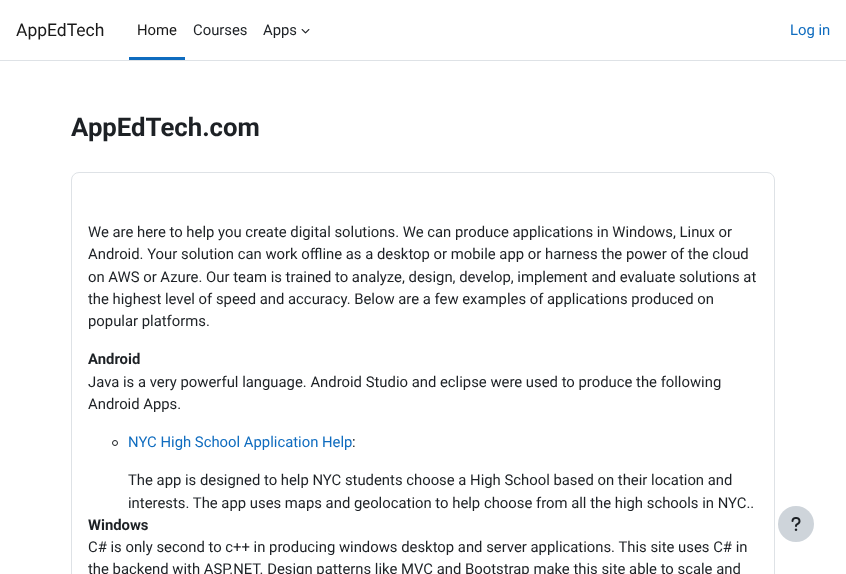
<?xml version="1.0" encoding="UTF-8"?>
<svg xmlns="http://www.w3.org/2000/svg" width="846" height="574">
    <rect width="100%" height="100%" fill="#FFFFFF"/>
    <rect x="0" y="60" width="846" height="1" fill="#DEE2E6"/>
    <text x="16" y="36" font-family="Roboto" font-size="17.5" fill="#1A1A1A">AppEdTech</text>
    <rect x="129" y="57" width="56" height="3" fill="#0F6CBF"/>
    <text x="137" y="35" font-family="Roboto" font-size="14.85" fill="#1A1A1A">Home</text>
    <text x="193" y="35" font-family="Roboto" font-size="14.85" fill="#1D2125">Courses</text>
    <text x="263" y="35" font-family="Roboto" font-size="14.85" fill="#1D2125">Apps</text>
    <image x="301" y="29" width="9" height="5" href="img_01.png"/>
    <text x="790" y="35" font-family="Roboto" font-size="14.85" fill="#0F6CBF">Log in</text>
    <text x="71" y="136" font-family="Roboto" font-size="25.75" font-weight="700" fill="#1D2125">AppEdTech.com</text>
    <rect x="71.5" y="172.5" width="703" height="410" rx="7.5" fill="none" stroke="#DEE2E6"/>
    <text font-family="Roboto" font-size="14.85" fill="#1D2125">
        <tspan x="88" y="237">We are here to help you create digital solutions. We can produce applications in Windows, Linux or</tspan>
        <tspan x="88" y="259">Android. Your solution can work offline as a desktop or mobile app or harness the power of the cloud</tspan>
        <tspan x="88" y="282">on AWS or Azure. Our team is trained to analyze, design, develop, implement and evaluate solutions at</tspan>
        <tspan x="88" y="304">the highest level of speed and accuracy. Below are a few examples of applications produced on</tspan>
        <tspan x="88" y="326">popular platforms.</tspan>
    </text>
    <text x="88" y="364" font-family="Roboto" font-size="14.85" font-weight="700" fill="#1D2125">Android</text>
    <text font-family="Roboto" font-size="14.85" fill="#1D2125">
        <tspan x="88" y="387">Java is a very powerful language. Android Studio and eclipse were used to produce the following</tspan>
        <tspan x="88" y="409">Android Apps.</tspan>
    </text>
    <circle cx="115" cy="443" r="2.5" fill="none" stroke="#1D2125"/>
    <text x="128" y="447" font-family="Roboto" font-size="14.85" fill="#0F6CBF">NYC High School Application Help</text>
    <text x="352" y="447" font-family="Roboto" font-size="14.85" fill="#1D2125">:</text>
    <text font-family="Roboto" font-size="14.85" fill="#1D2125">
        <tspan x="128" y="485">The app is designed to help NYC students choose a High School based on their location and</tspan>
        <tspan x="128" y="508">interests. The app uses maps and geolocation to help choose from all the high schools in NYC..</tspan>
    </text>
    <text x="88" y="530" font-family="Roboto" font-size="14.85" font-weight="700" fill="#1D2125">Windows</text>
    <text font-family="Roboto" font-size="14.85" fill="#1D2125">
        <tspan x="88" y="552">C# is only second to c++ in producing windows desktop and server applications. This site uses C# in</tspan>
        <tspan x="88" y="574">the backend with ASP.NET. Design patterns like MVC and Bootstrap make this site able to scale and</tspan>
    </text>
    <circle cx="796" cy="524" r="18" fill="#CED4DA"/>
    <image x="791" y="517" width="10" height="14" href="img_02.png"/>
</svg>
